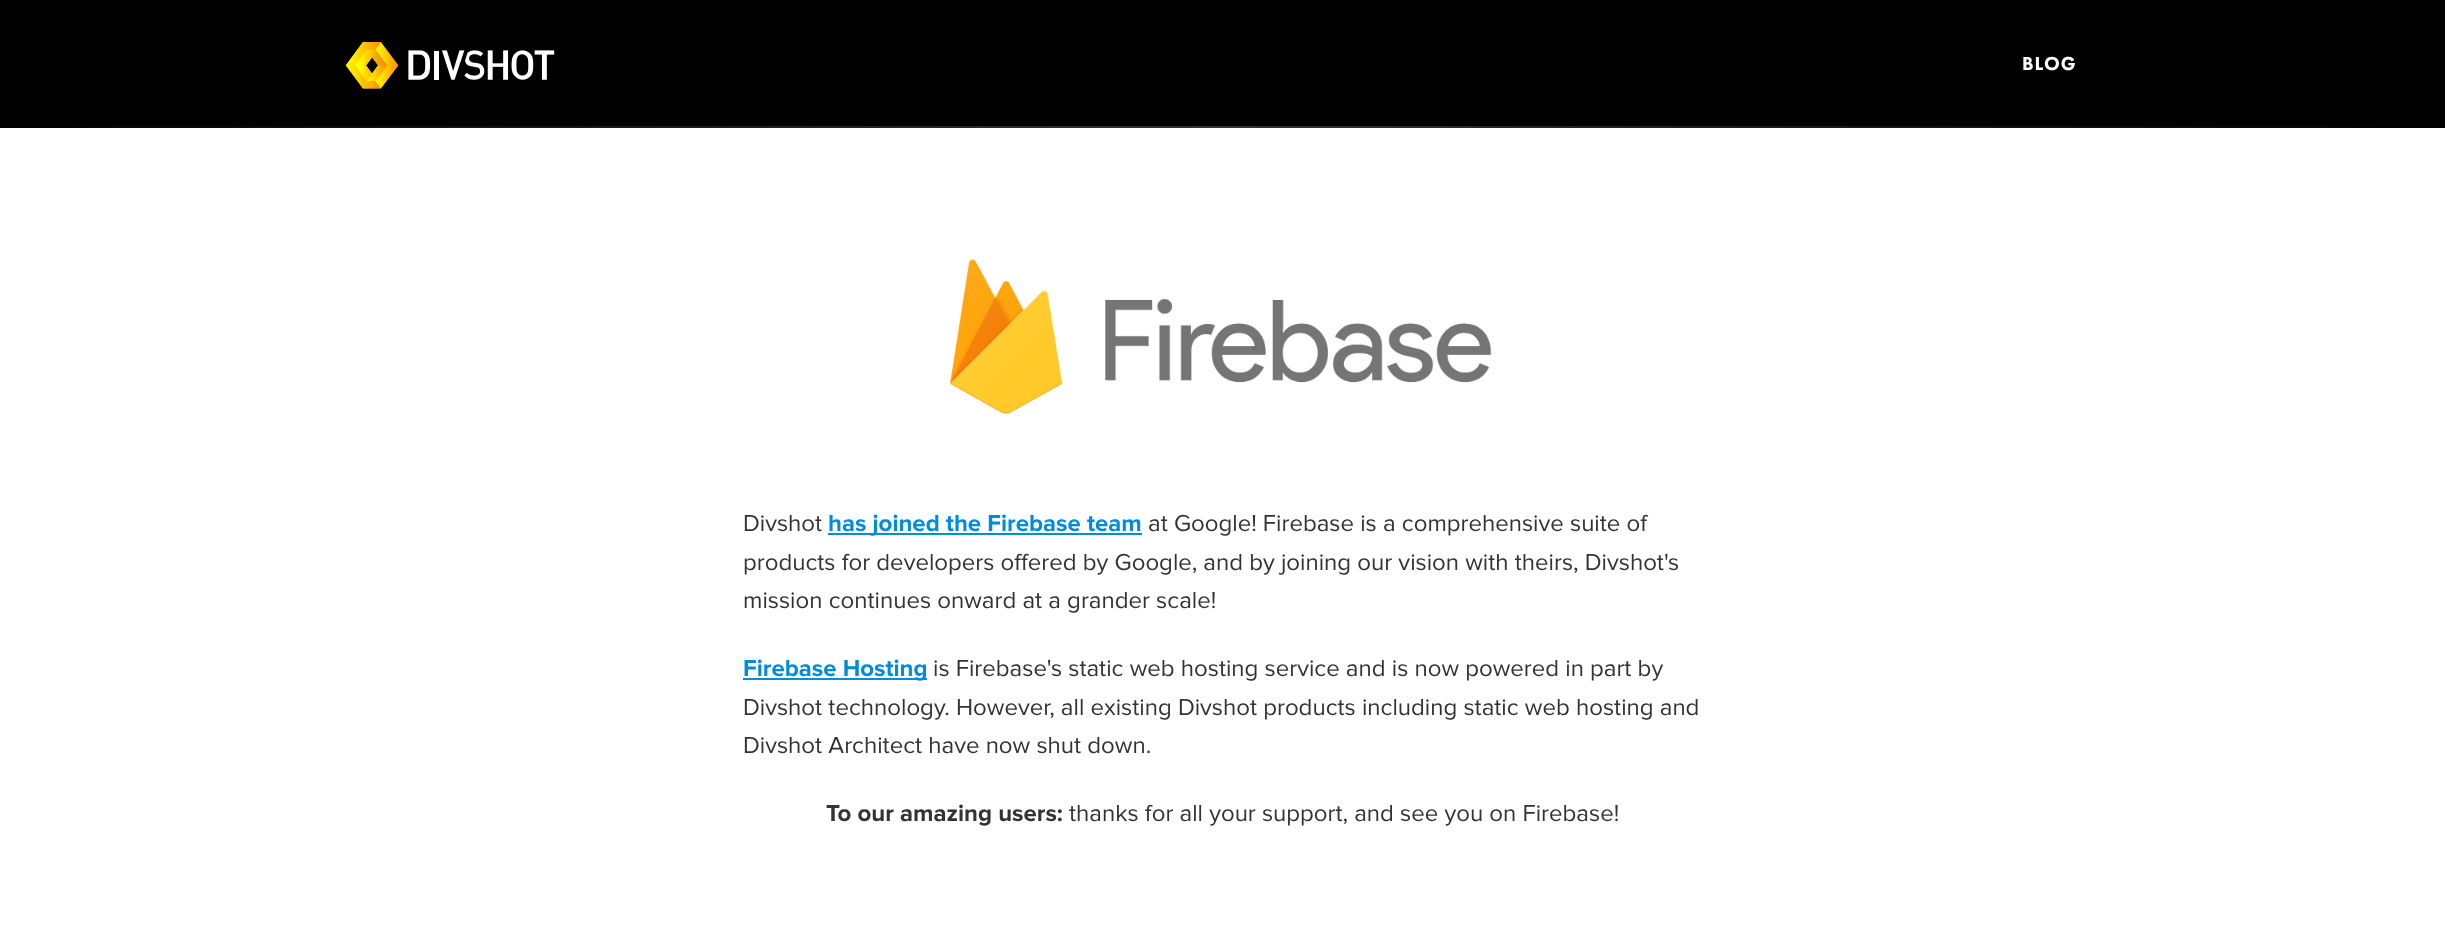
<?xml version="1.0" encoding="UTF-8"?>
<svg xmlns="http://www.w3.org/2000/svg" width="2445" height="929">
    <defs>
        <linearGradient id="g1" gradientUnits="userSpaceOnUse" x1="0" y1="127" x2="2445" y2="127"><stop offset="0" stop-color="#000000"/><stop offset="0.5" stop-color="#333333"/><stop offset="1" stop-color="#000000"/></linearGradient>
    </defs>
    <rect width="100%" height="100%" fill="#000000"/>
    <image x="345" y="42" width="210" height="47" href="img_01.png"/>
    <text x="2022" y="70" font-family="Futura PT" font-size="19.5" font-weight="900" letter-spacing="1" fill="#FFFFFF">BLOG</text>
    <rect x="60" y="126" width="2325" height="2" fill="url(#g1)"/>
    <rect x="0" y="128" width="2445" height="801" fill="#FFFFFF"/>
    <image x="948" y="258" width="544" height="156" href="img_02.png"/>
    <text x="743" y="531" font-family="Proxima Nova" font-size="24" fill="#333333">Divshot</text>
    <rect x="828" y="533" width="314" height="2" fill="#008CDD"/>
    <text x="828" y="531" font-family="Proxima Nova" font-size="24" font-weight="700" fill="#008CDD">has joined the Firebase team</text>
    <text x="1148" y="531" font-family="Proxima Nova" font-size="24" fill="#333333">at Google! Firebase is a comprehensive suite of</text>
    <text font-family="Proxima Nova" font-size="24" fill="#333333">
        <tspan x="743" y="570">products for developers offered by Google, and by joining our vision with theirs, Divshot's</tspan>
        <tspan x="743" y="608">mission continues onward at a grander scale!</tspan>
    </text>
    <rect x="743" y="678" width="184" height="2" fill="#008CDD"/>
    <text x="743" y="676" font-family="Proxima Nova" font-size="24" font-weight="700" fill="#008CDD">Firebase Hosting</text>
    <text x="933" y="676" font-family="Proxima Nova" font-size="24" fill="#333333">is Firebase's static web hosting service and is now powered in part by</text>
    <text font-family="Proxima Nova" font-size="24" fill="#333333">
        <tspan x="743" y="715">Divshot technology. However, all existing Divshot products including static web hosting and</tspan>
        <tspan x="743" y="753">Divshot Architect have now shut down.</tspan>
    </text>
    <text x="826" y="821" font-family="Proxima Nova" font-size="24" font-weight="700" fill="#333333">To our amazing users:</text>
    <text x="1069" y="821" font-family="Proxima Nova" font-size="24" fill="#333333">thanks for all your support, and see you on Firebase!</text>
</svg>
